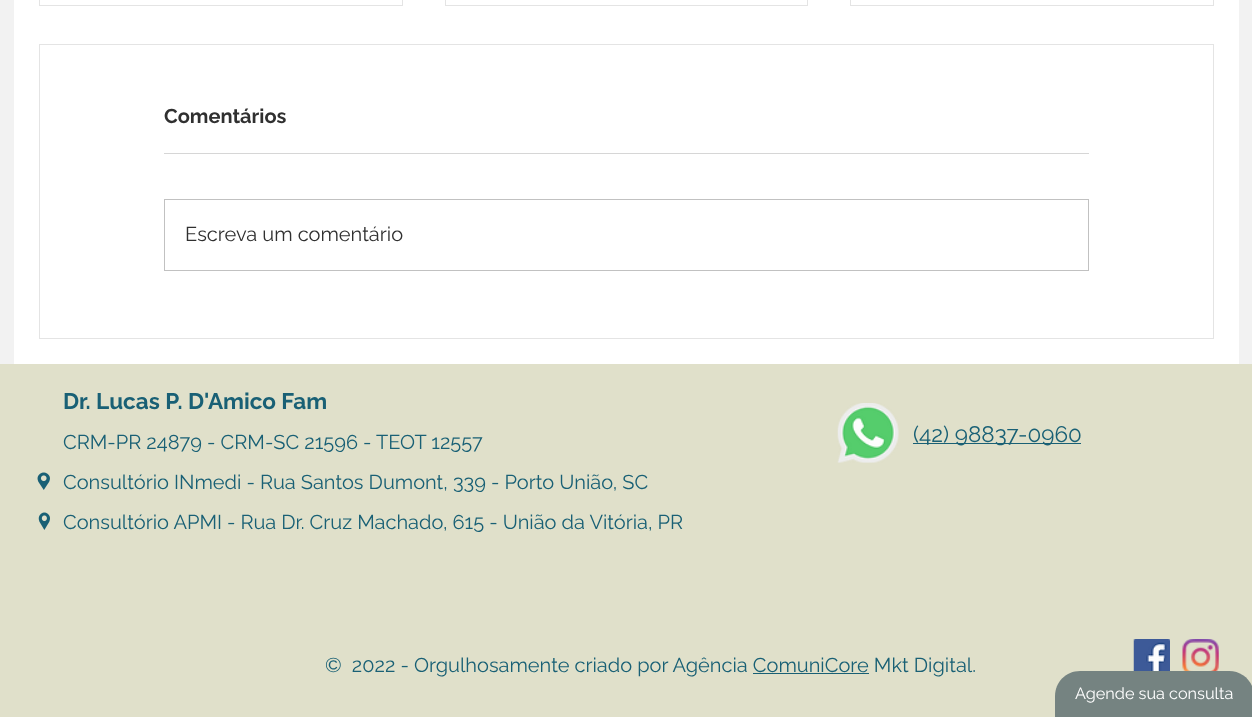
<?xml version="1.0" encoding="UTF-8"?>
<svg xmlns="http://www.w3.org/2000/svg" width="1252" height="717">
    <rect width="100%" height="100%" fill="#F2F2F2"/>
    <rect x="14" y="0" width="1225" height="364" fill="#FFFFFF"/>
    <rect x="39.5" y="-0.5" width="363" height="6" fill="none" stroke="#E4E4E4"/>
    <rect x="445.5" y="-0.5" width="362" height="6" fill="none" stroke="#E4E4E4"/>
    <rect x="850.5" y="-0.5" width="363" height="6" fill="none" stroke="#E4E4E4"/>
    <rect x="39.5" y="44.5" width="1174" height="294" fill="none" stroke="#E4E4E4"/>
    <text x="164" y="123" font-family="Raleway" font-size="20" font-weight="700" fill="#303030">Comentários</text>
    <rect x="164" y="153" width="925" height="1" fill="#D6D6D6"/>
    <rect x="164.5" y="199.5" width="924" height="71" fill="none" stroke="#C1C1C1"/>
    <text x="185" y="241" font-family="Raleway" font-size="20" fill="#303030">Escreva um comentário</text>
    <rect x="0" y="364" width="1252" height="353" fill="#E0E0CA"/>
    <text x="63" y="409" font-family="Raleway" font-size="22.5" font-weight="700" fill="#196075">Dr. Lucas P. D'Amico Fam</text>
    <text x="63" y="449" font-family="Raleway" font-size="20" fill="#196075">CRM-PR 24879 - CRM-SC 21596 - TEOT 12557</text>
    <text x="63" y="489" font-family="Raleway" font-size="20" fill="#196075">Consultório INmedi - Rua Santos Dumont, 339 - Porto União, SC</text>
    <text x="63" y="529" font-family="Raleway" font-size="20" fill="#196075">Consultório APMI - Rua Dr. Cruz Machado, 615 - União da Vitória, PR</text>
    <image x="837" y="403" width="62" height="60" href="img_01.png"/>
    <rect x="913" y="443" width="168" height="1" fill="#196075"/>
    <text x="913" y="442" font-family="Raleway" font-size="22.5" fill="#196075">(42) 98837-0960</text>
    <image x="37" y="472" width="13" height="18" href="img_02.png"/>
    <image x="38" y="512" width="12" height="18" href="img_03.png"/>
    <text x="325" y="672" font-family="Raleway" font-size="20" fill="#196075" xml:space="preserve">©  2022 - Orgulhosamente criado por Agência ComuniCore Mkt Digital.</text>
    <rect x="753" y="673" width="116" height="1" fill="#196075"/>
    <image x="1133" y="639" width="37" height="32" href="img_04.png"/>
    <image x="1182" y="639" width="37" height="32" href="img_05.png"/>
    <path d="M 1080 671 H 1229 C 1243 671 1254 682 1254 696 V 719 H 1055 V 696 C 1055 682 1066 671 1080 671 Z" fill="#758381"/>
    <text x="1075" y="699" font-family="Raleway" font-size="16.25" fill="#FFFFFF">Agende sua consulta</text>
</svg>
